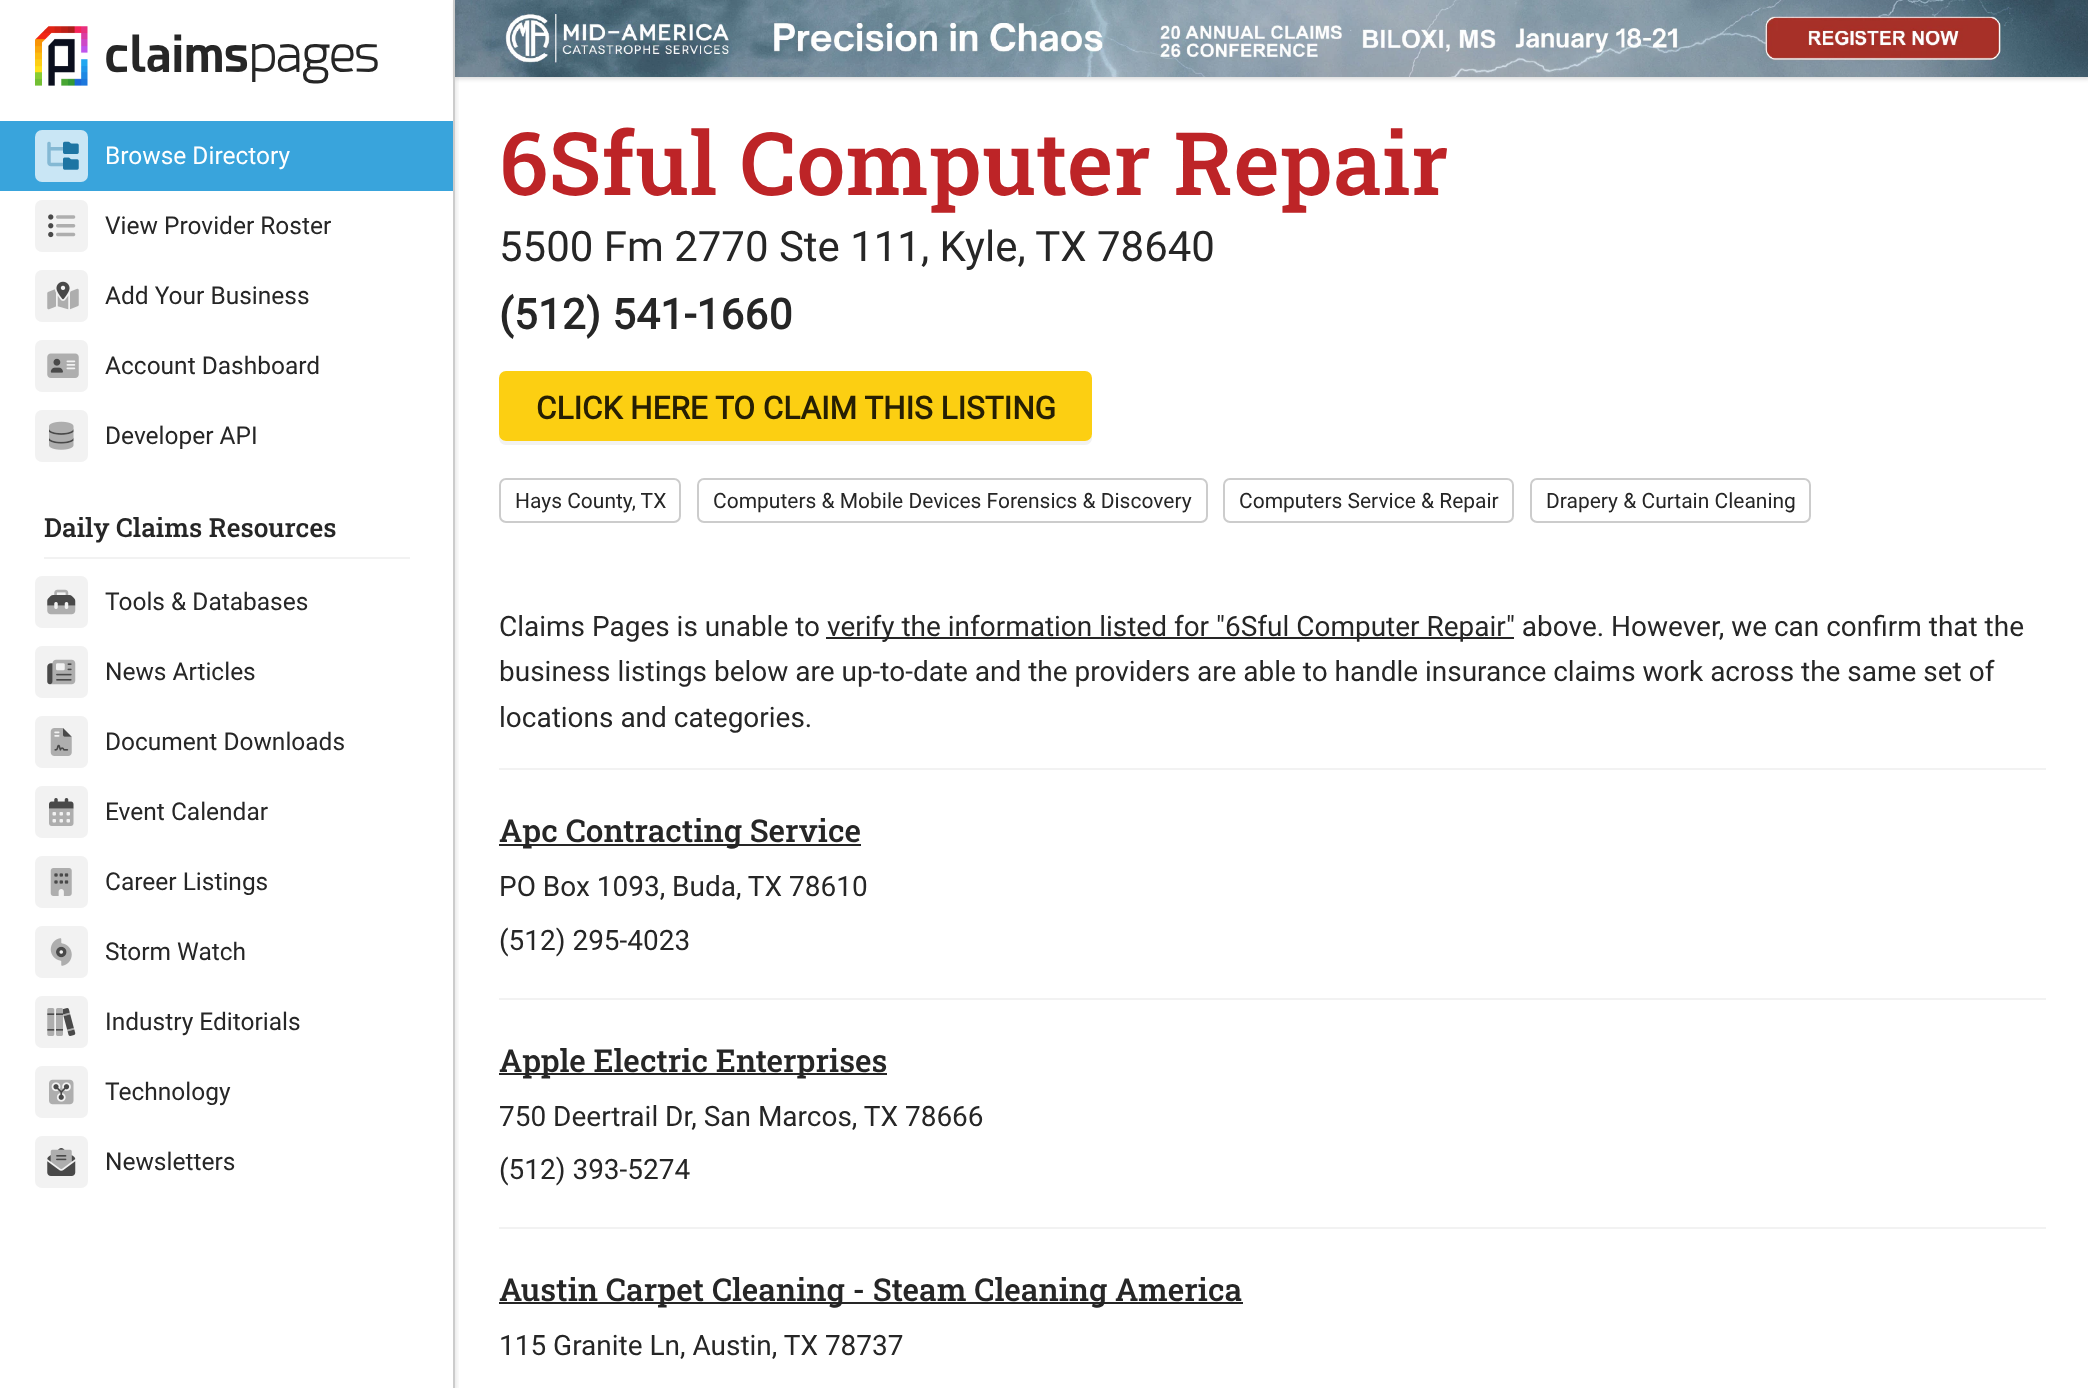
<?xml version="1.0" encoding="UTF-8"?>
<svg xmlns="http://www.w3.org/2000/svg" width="2088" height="1388">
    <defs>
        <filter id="blur1" x="-50%" y="-200%" width="200%" height="500%"><feGaussianBlur stdDeviation="2"/></filter>
        <clipPath id="clip1"><rect x="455" y="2" width="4" height="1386"/></clipPath>
        <filter id="blur2" x="-50%" y="-200%" width="200%" height="500%"><feGaussianBlur stdDeviation="3.5"/></filter>
    </defs>
    <rect width="100%" height="100%" fill="#FFFFFF"/>
    <rect x="455" y="2" width="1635" height="77" fill="#000000" fill-opacity="0.15" filter="url(#blur1)"/>
    <image x="455" y="0" width="1633" height="77" href="img_30.png"/>
    <g clip-path="url(#clip1)">
        <rect x="0" y="4" width="455" height="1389" fill="#000000" fill-opacity="0.15" filter="url(#blur2)"/>
    </g>
    <rect x="453" y="0" width="2" height="1388" fill="#CCCCCC"/>
    <image x="35" y="26" width="53" height="60" href="img_01.png"/>
    <text x="105" y="72" font-family="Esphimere" font-size="49" font-weight="700" fill="#262626">claims</text>
    <text x="249" y="72" font-family="'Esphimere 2'" font-size="49" font-weight="700" fill="#262626">pages</text>
    <rect x="0" y="121" width="453" height="70" fill="#39A4DC"/>
    <rect x="35" y="130" width="53" height="52" rx="7" fill="#C9E6F5"/>
    <image x="47" y="141" width="16" height="26" href="img_02.png"/>
    <image x="63" y="141" width="16" height="29" href="img_03.png"/>
    <text x="105" y="164" font-family="Roboto" font-size="24.5" fill="#FFFFFF">Browse Directory</text>
    <rect x="35" y="200" width="53" height="52" rx="7" fill="#F2F2F2"/>
    <image x="48" y="214" width="6" height="24" href="img_04.png"/>
    <image x="56" y="215" width="20" height="22" href="img_05.png"/>
    <text x="105" y="234" font-family="Roboto" font-size="24.5" fill="#262626">View Provider Roster</text>
    <rect x="35" y="270" width="53" height="52" rx="7" fill="#F2F2F2"/>
    <image x="56" y="281" width="14" height="19" href="img_06.png"/>
    <image x="47" y="288" width="32" height="22" href="img_07.png"/>
    <text x="105" y="304" font-family="Roboto" font-size="24.5" fill="#262626">Add Your Business</text>
    <rect x="35" y="340" width="53" height="52" rx="7" fill="#F2F2F2"/>
    <image x="50" y="358" width="13" height="15" href="img_09.png"/>
    <image x="47" y="353" width="32" height="25" href="img_08.png"/>
    <text x="105" y="374" font-family="Roboto" font-size="24.5" fill="#262626">Account Dashboard</text>
    <rect x="35" y="410" width="53" height="52" rx="7" fill="#F2F2F2"/>
    <image x="49" y="429" width="25" height="15" href="img_11.png"/>
    <image x="49" y="421" width="25" height="29" href="img_10.png"/>
    <text x="105" y="444" font-family="Roboto" font-size="24.5" fill="#262626">Developer API</text>
    <text x="44" y="537" font-family="Roboto Slab" font-size="26.25" font-weight="500" fill="#262626">Daily Claims Resources</text>
    <rect x="44" y="557" width="366" height="2" fill="#F2F2F2"/>
    <rect x="35" y="576" width="53" height="52" rx="7" fill="#F2F2F2"/>
    <image x="47" y="595" width="29" height="11" href="img_13.png"/>
    <image x="47" y="589" width="29" height="26" href="img_12.png"/>
    <text x="105" y="610" font-family="Roboto" font-size="24.5" fill="#262626">Tools &amp; Databases</text>
    <rect x="35" y="646" width="53" height="52" rx="7" fill="#F2F2F2"/>
    <image x="47" y="663" width="25" height="22" href="img_15.png"/>
    <image x="50" y="659" width="26" height="26" href="img_14.png"/>
    <text x="105" y="680" font-family="Roboto" font-size="24.5" fill="#262626">News Articles</text>
    <rect x="35" y="716" width="53" height="52" rx="7" fill="#F2F2F2"/>
    <image x="54" y="728" width="18" height="23" href="img_17.png"/>
    <image x="50" y="728" width="22" height="28" href="img_16.png"/>
    <text x="105" y="750" font-family="Roboto" font-size="24.5" fill="#262626">Document Downloads</text>
    <rect x="35" y="786" width="53" height="52" rx="7" fill="#F2F2F2"/>
    <image x="49" y="798" width="25" height="11" href="img_18.png"/>
    <image x="49" y="808" width="25" height="18" href="img_19.png"/>
    <text x="105" y="820" font-family="Roboto" font-size="24.5" fill="#262626">Event Calendar</text>
    <rect x="35" y="856" width="53" height="52" rx="7" fill="#F2F2F2"/>
    <image x="54" y="873" width="15" height="11" href="img_21.png"/>
    <image x="50" y="868" width="22" height="28" href="img_20.png"/>
    <text x="105" y="890" font-family="Roboto" font-size="24.5" fill="#262626">Career Listings</text>
    <rect x="35" y="926" width="53" height="52" rx="7" fill="#F2F2F2"/>
    <image x="56" y="946" width="11" height="12" href="img_23.png"/>
    <image x="50" y="938" width="22" height="28" href="img_22.png"/>
    <text x="105" y="960" font-family="Roboto" font-size="24.5" fill="#262626">Storm Watch</text>
    <rect x="35" y="996" width="53" height="52" rx="7" fill="#F2F2F2"/>
    <image x="47" y="1008" width="29" height="28" href="img_24.png"/>
    <image x="47" y="1008" width="28" height="28" href="img_25.png"/>
    <text x="105" y="1030" font-family="Roboto" font-size="24.5" fill="#262626">Industry Editorials</text>
    <rect x="35" y="1066" width="53" height="52" rx="7" fill="#F2F2F2"/>
    <image x="53" y="1084" width="17" height="16" href="img_27.png"/>
    <image x="49" y="1079" width="25" height="26" href="img_26.png"/>
    <text x="105" y="1100" font-family="Roboto" font-size="24.5" fill="#262626">Technology</text>
    <rect x="35" y="1136" width="53" height="52" rx="7" fill="#F2F2F2"/>
    <image x="47" y="1148" width="29" height="28" href="img_28.png"/>
    <image x="50" y="1149" width="22" height="20" href="img_29.png"/>
    <text x="105" y="1170" font-family="Roboto" font-size="24.5" fill="#262626">Newsletters</text>
    <text x="499" y="195" font-family="Roboto Slab" font-size="87.5" font-weight="500" letter-spacing="0.5" fill="#BD2427">6Sful Computer Repair</text>
    <text x="499" y="261" font-family="Roboto" font-size="42" fill="#262626">5500 Fm 2770 Ste 111, Kyle, TX 78640</text>
    <text x="499" y="329" font-family="Roboto" font-size="42" font-weight="700" letter-spacing="0.5" fill="#262626">(512) 541-1660</text>
    <path d="M 499 436 V 438 C 499 442 502 445 506 445 H 1085 C 1089 445 1092 442 1092 438 V 434 C 1092 438 1089 441 1085 441 H 506 C 503 441 500 439 499 436 Z" fill="#F2F2F2"/>
    <rect x="499" y="371" width="593" height="70" rx="7" fill="#FCCF12"/>
    <text x="536" y="419" font-family="Roboto" font-size="31.5" font-weight="700" fill="#261F03">CLICK HERE TO CLAIM THIS LISTING</text>
    <rect x="500" y="479" width="180" height="43" rx="6" fill="none" stroke="#CCCCCC" stroke-width="2"/>
    <text x="515" y="508" font-family="Roboto" font-size="21" fill="#262626">Hays County, TX</text>
    <rect x="698" y="479" width="509" height="43" rx="6" fill="none" stroke="#CCCCCC" stroke-width="2"/>
    <text x="713" y="508" font-family="Roboto" font-size="21" fill="#262626">Computers &amp; Mobile Devices Forensics &amp; Discovery</text>
    <rect x="1224" y="479" width="289" height="43" rx="6" fill="none" stroke="#CCCCCC" stroke-width="2"/>
    <text x="1239" y="508" font-family="Roboto" font-size="21" fill="#262626">Computers Service &amp; Repair</text>
    <rect x="1531" y="479" width="279" height="43" rx="6" fill="none" stroke="#CCCCCC" stroke-width="2"/>
    <text x="1546" y="508" font-family="Roboto" font-size="21" fill="#262626">Drapery &amp; Curtain Cleaning</text>
    <text x="499" y="636" font-family="Roboto" font-size="28" fill="#262626">Claims Pages is unable to</text>
    <rect x="826" y="637" width="688" height="2" fill="#262626"/>
    <text x="827" y="636" font-family="Roboto" font-size="28" fill="#262626">verify the information listed for "6Sful Computer Repair" above. However, we can confirm that the</text>
    <text font-family="Roboto" font-size="28" fill="#262626">
        <tspan x="499" y="681">business listings below are up-to-date and the providers are able to handle insurance claims work across the same set of</tspan>
        <tspan x="499" y="727">locations and categories.</tspan>
    </text>
    <rect x="499" y="768" width="1547" height="2" fill="#F2F2F2"/>
    <rect x="499" y="844" width="362" height="2" fill="#262626"/>
    <text x="499" y="842" font-family="Roboto Slab" font-size="31.5" font-weight="500" fill="#262626">Apc Contracting Service</text>
    <text font-family="Roboto" font-size="28" fill="#262626">
        <tspan x="499" y="896">PO Box 1093, Buda, TX 78610</tspan>
        <tspan x="499" y="950">(512) 295-4023</tspan>
    </text>
    <rect x="499" y="998" width="1547" height="2" fill="#F2F2F2"/>
    <rect x="499" y="1073" width="388" height="2" fill="#262626"/>
    <text x="499" y="1072" font-family="Roboto Slab" font-size="31.5" font-weight="500" fill="#262626">Apple Electric Enterprises</text>
    <text font-family="Roboto" font-size="28" fill="#262626">
        <tspan x="499" y="1126">750 Deertrail Dr, San Marcos, TX 78666</tspan>
        <tspan x="499" y="1179">(512) 393-5274</tspan>
    </text>
    <rect x="499" y="1227" width="1547" height="2" fill="#F2F2F2"/>
    <rect x="499" y="1302" width="744" height="2" fill="#262626"/>
    <text x="499" y="1301" font-family="Roboto Slab" font-size="31.5" font-weight="500" fill="#262626">Austin Carpet Cleaning - Steam Cleaning America</text>
    <text x="499" y="1355" font-family="Roboto" font-size="28" fill="#262626">115 Granite Ln, Austin, TX 78737</text>
</svg>
